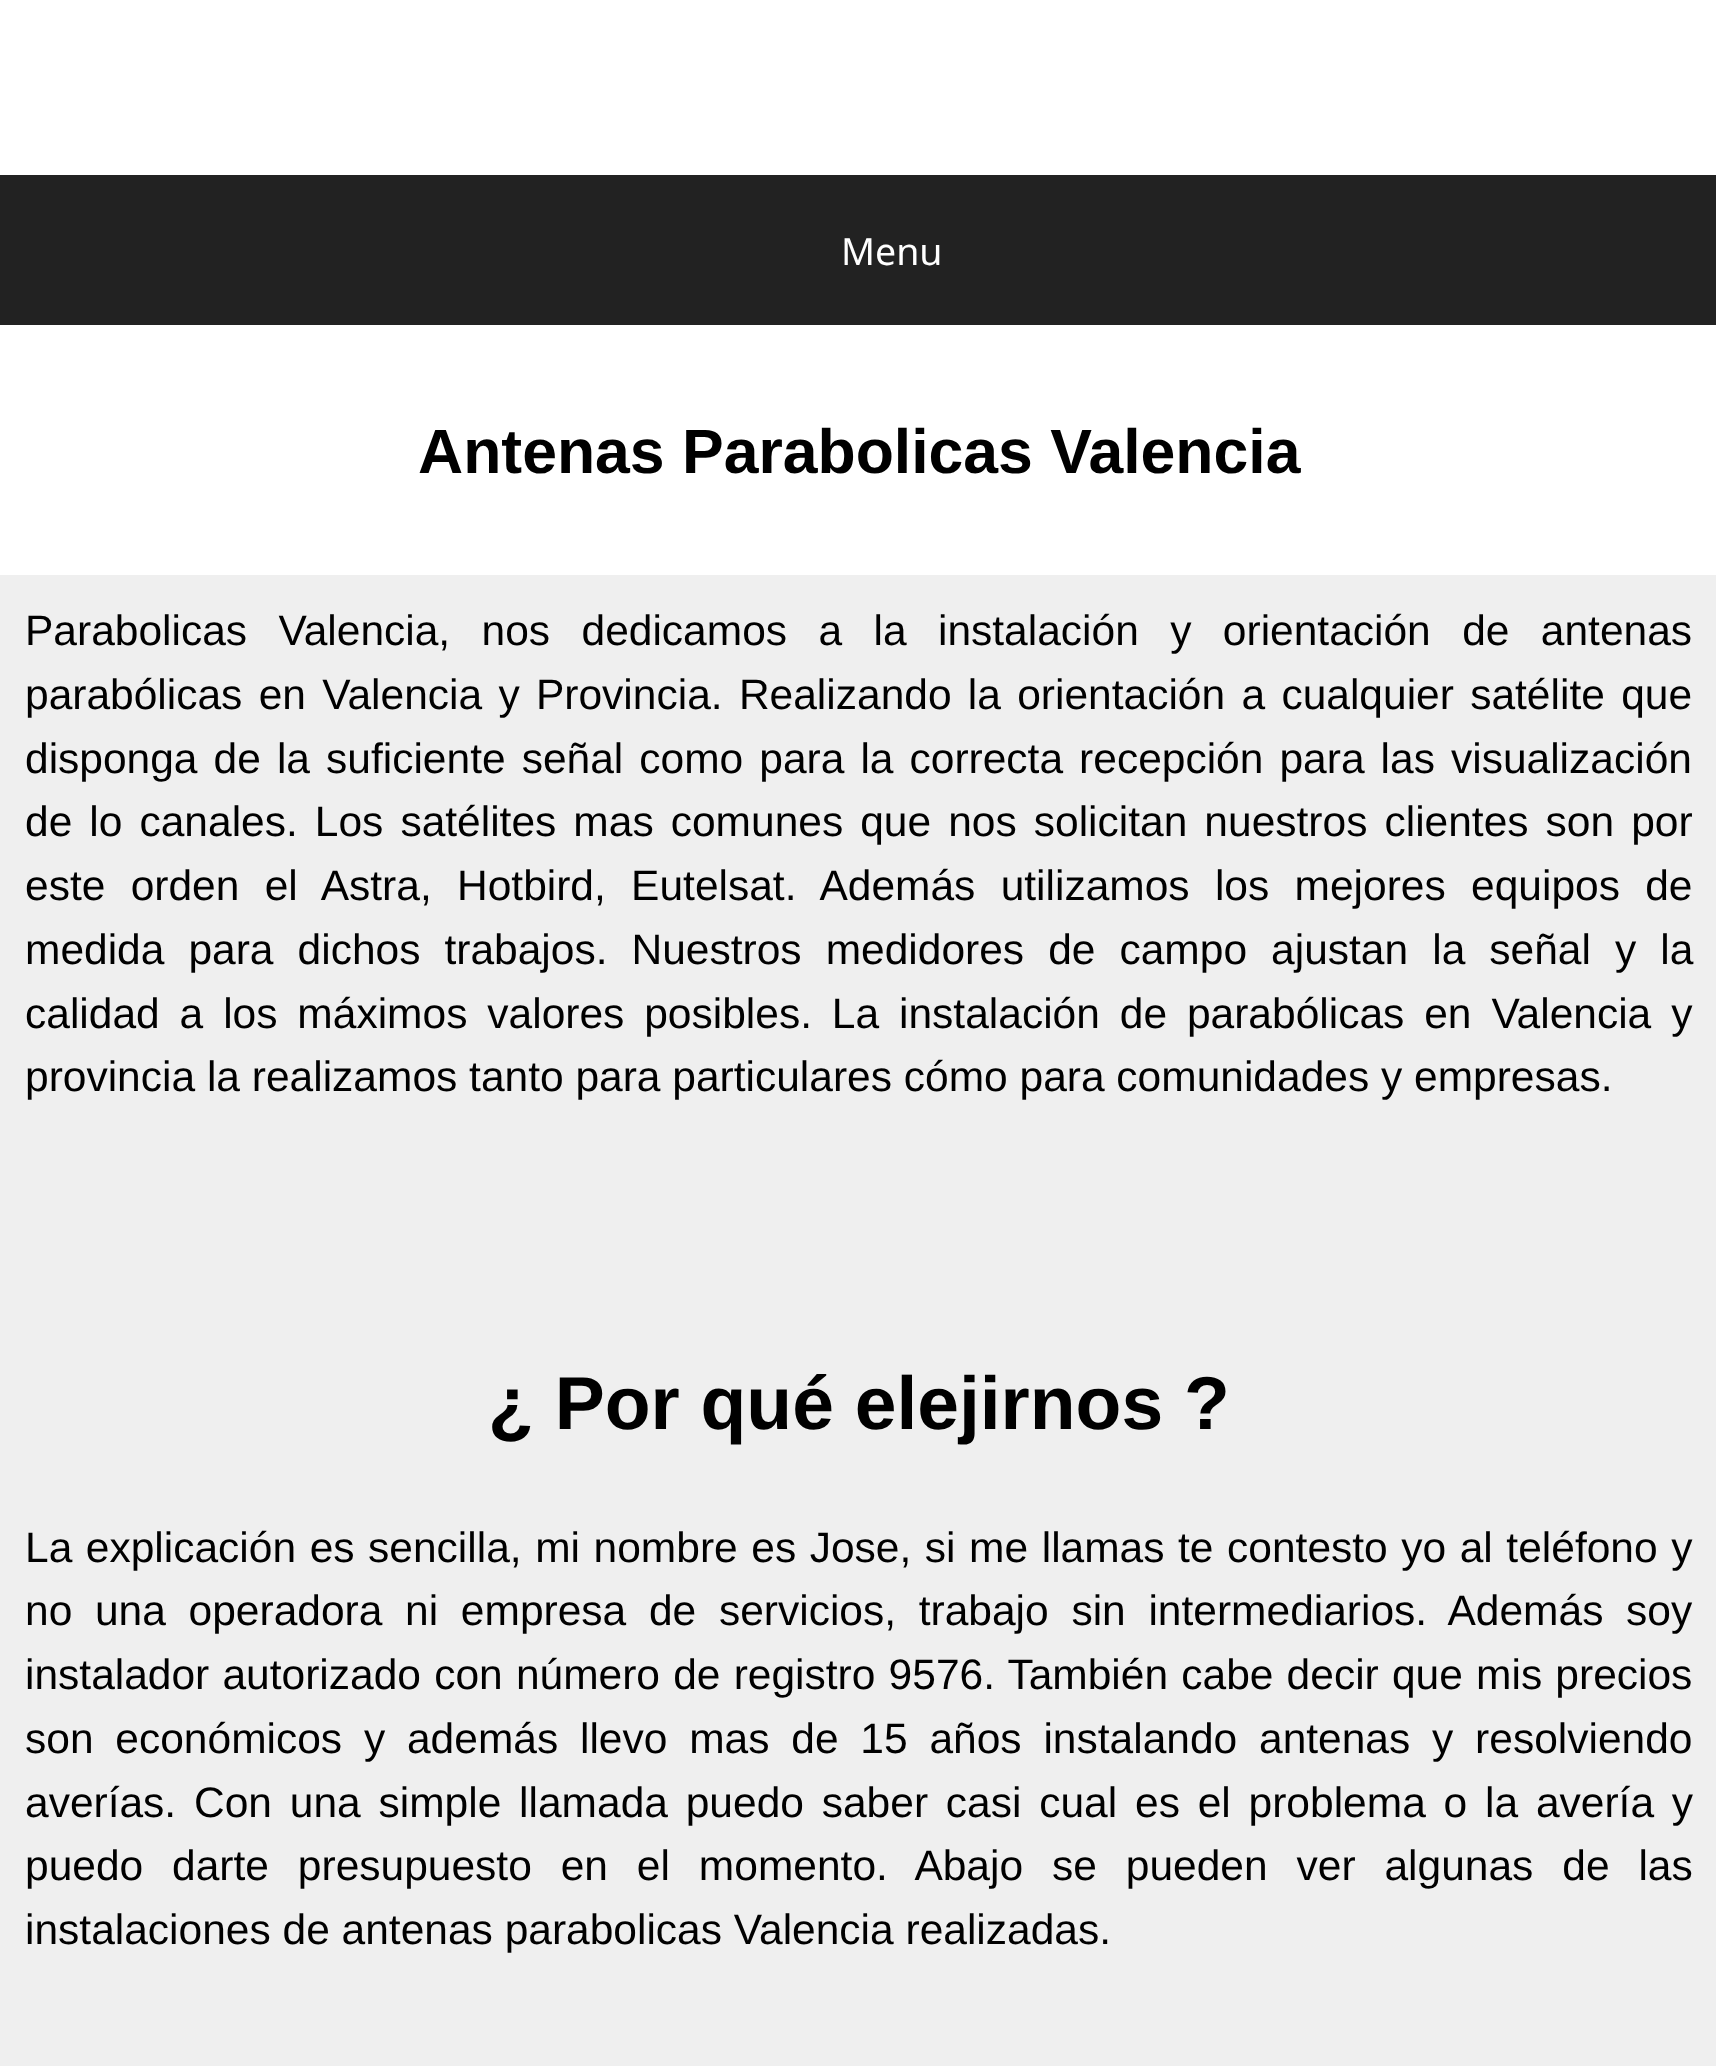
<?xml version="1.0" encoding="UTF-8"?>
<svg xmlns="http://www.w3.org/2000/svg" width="1716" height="2066">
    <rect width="100%" height="100%" fill="#EFEFEF"/>
    <rect x="0" y="0" width="1716" height="175" fill="#FFFFFF"/>
    <rect x="0" y="175" width="1716" height="150" fill="#222222"/>
    <text x="841" y="265" font-family="Noto Sans" font-size="37.5" fill="#FFFFFF">Menu</text>
    <rect x="0" y="325" width="1716" height="250" fill="#FFFFFF"/>
    <text x="418" y="473" font-family="Liberation Sans" font-size="62.5" font-weight="700" fill="#000000">Antenas Parabolicas Valencia</text>
    <text font-family="Liberation Sans" font-size="42.5" fill="#000000">
        <tspan x="25" y="645" word-spacing="19.6">Parabolicas Valencia, nos dedicamos a la instalación y orientación de antenas</tspan>
        <tspan x="25" y="709" word-spacing="4.5">parabólicas en Valencia y Provincia. Realizando la orientación a cualquier satélite que</tspan>
        <tspan x="25" y="773" word-spacing="4.25">disponga de la suficiente señal como para la correcta recepción para las visualización</tspan>
        <tspan x="25" y="836" word-spacing="5.25">de lo canales. Los satélites mas comunes que nos solicitan nuestros clientes son por</tspan>
        <tspan x="25" y="900" word-spacing="13.5">este orden el Astra, Hotbird, Eutelsat. Además utilizamos los mejores equipos de</tspan>
        <tspan x="25" y="964" word-spacing="12.25">medida para dichos trabajos. Nuestros medidores de campo ajustan la señal y la</tspan>
        <tspan x="25" y="1028" word-spacing="8.1">calidad a los máximos valores posibles. La instalación de parabólicas en Valencia y</tspan>
        <tspan x="25" y="1091">provincia la realizamos tanto para particulares cómo para comunidades y empresas.</tspan>
    </text>
    <text x="488" y="1429" font-family="Liberation Sans" font-size="75" font-weight="700" fill="#000000">¿ Por qué elejirnos ?</text>
    <text font-family="Liberation Sans" font-size="42.5" fill="#000000">
        <tspan x="25" y="1562" word-spacing="1.75">La explicación es sencilla, mi nombre es Jose, si me llamas te contesto yo al teléfono y</tspan>
        <tspan x="25" y="1625" word-spacing="10.9">no una operadora ni empresa de servicios, trabajo sin intermediarios. Además soy</tspan>
        <tspan x="25" y="1689" word-spacing="1.4">instalador autorizado con número de registro 9576. También cabe decir que mis precios</tspan>
        <tspan x="25" y="1753" word-spacing="10">son económicos y además llevo mas de 15 años instalando antenas y resolviendo</tspan>
        <tspan x="25" y="1817" word-spacing="6">averías. Con una simple llamada puedo saber casi cual es el problema o la avería y</tspan>
        <tspan x="25" y="1880" word-spacing="17.1">puedo darte presupuesto en el momento. Abajo se pueden ver algunas de las</tspan>
        <tspan x="25" y="1944">instalaciones de antenas parabolicas Valencia realizadas.</tspan>
    </text>
</svg>
